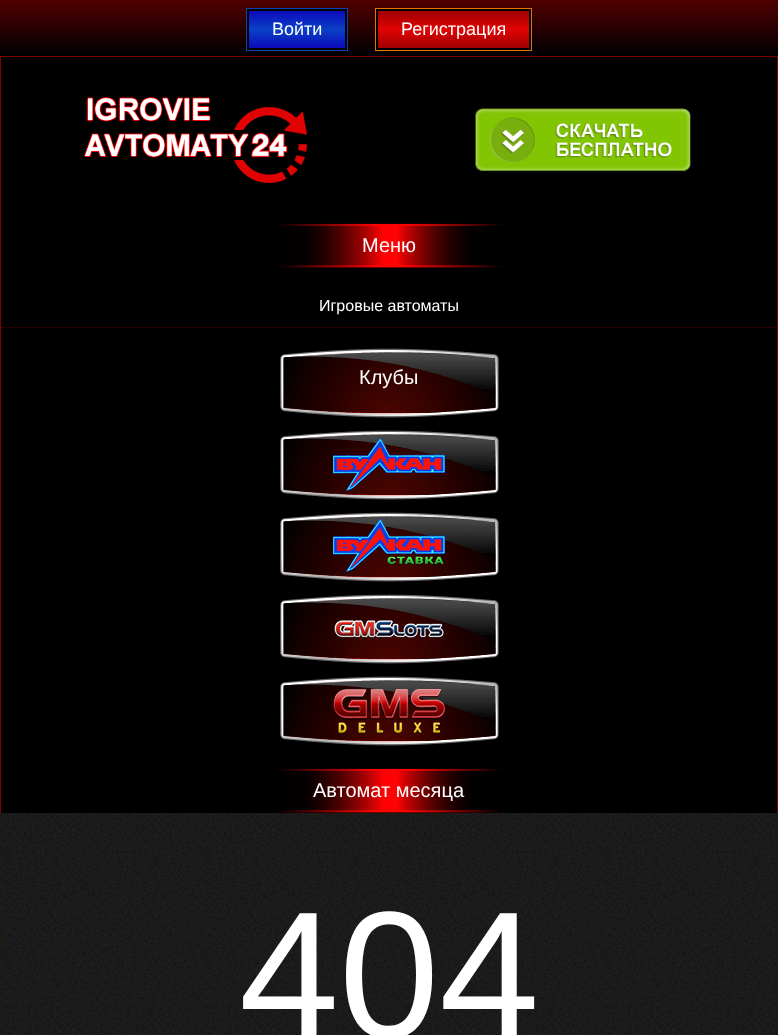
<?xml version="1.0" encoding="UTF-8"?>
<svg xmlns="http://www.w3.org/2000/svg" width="778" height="1035">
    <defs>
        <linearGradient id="g1" gradientUnits="userSpaceOnUse" x1="389" y1="56" x2="389" y2="0"><stop offset="0" stop-color="#000002"/><stop offset="1" stop-color="#500000"/></linearGradient>
        <linearGradient id="g2" gradientUnits="userSpaceOnUse" x1="297" y1="50" x2="297" y2="9"><stop offset="0" stop-color="#0B04B9"/><stop offset="0.5" stop-color="#0B41C5"/><stop offset="1" stop-color="#0B04B9"/></linearGradient>
        <linearGradient id="g3" gradientUnits="userSpaceOnUse" x1="454" y1="50" x2="454" y2="9"><stop offset="0" stop-color="#960002"/><stop offset="0.5" stop-color="#E20303"/><stop offset="1" stop-color="#960002"/></linearGradient>
    </defs>
    <rect width="100%" height="100%" fill="#FFFFFF"/>
    <image x="0" y="813" width="778" height="222" href="img_01.png"/>
    <rect x="0" y="0" width="778" height="56" fill="url(#g1)"/>
    <rect x="0" y="56" width="778" height="1" fill="#7B0102"/>
    <rect x="249" y="11" width="96" height="37" fill="url(#g2)"/>
    <rect x="246.5" y="8.5" width="101" height="42" fill="none" stroke="#0146B3"/>
    <rect x="248" y="10" width="98" height="39" fill="none" stroke="#000000" stroke-width="2"/>
    <text x="272" y="35" font-family="Liberation Sans" font-size="18" fill="#FFFFFF">Войти</text>
    <rect x="378" y="11" width="151" height="37" fill="url(#g3)"/>
    <rect x="375.5" y="8.5" width="156" height="42" fill="none" stroke="#E37602"/>
    <rect x="377" y="10" width="153" height="39" fill="none" stroke="#000000" stroke-width="2"/>
    <text x="401" y="35" font-family="Liberation Sans" font-size="18" fill="#FFFFFF">Регистрация</text>
    <rect x="1" y="57" width="776" height="756" fill="#000000"/>
    <rect x="777" y="57" width="1" height="756" fill="#7B0102"/>
    <rect x="0" y="57" width="1" height="756" fill="#7B0102"/>
    <image x="84" y="97" width="223" height="86" href="img_02.png"/>
    <image x="475" y="108" width="216" height="64" href="img_03.png"/>
    <image x="278" y="223" width="226" height="45" href="img_04.png"/>
    <text x="362" y="252" font-family="Liberation Sans" font-size="20" fill="#FFFFFF">Меню</text>
    <rect x="1" y="327" width="776" height="1" fill="#2A0000"/>
    <text x="319" y="311" font-family="Liberation Sans" font-size="16" fill="#FFFFFF">Игровые автоматы</text>
    <image x="280" y="348" width="219" height="72" href="img_05.png"/>
    <text x="359" y="384" font-family="Liberation Sans" font-size="20" fill="#FFFFFF">Клубы</text>
    <image x="280" y="430" width="219" height="72" href="img_05.png"/>
    <image x="333" y="437" width="112" height="55" href="img_06.png"/>
    <image x="280" y="512" width="219" height="72" href="img_05.png"/>
    <image x="333" y="519" width="112" height="54" href="img_07.png"/>
    <image x="280" y="594" width="219" height="72" href="img_05.png"/>
    <image x="334" y="620" width="110" height="18" href="img_08.png"/>
    <image x="280" y="676" width="219" height="72" href="img_05.png"/>
    <image x="333" y="689" width="112" height="45" href="img_09.png"/>
    <image x="278" y="768" width="226" height="45" href="img_04.png"/>
    <text x="313" y="797" font-family="Liberation Sans" font-size="20" fill="#FFFFFF">Автомат месяца</text>
    <text x="239" y="1037" font-family="Liberation Sans" font-size="180" fill="#FFFFFF">404</text>
</svg>
